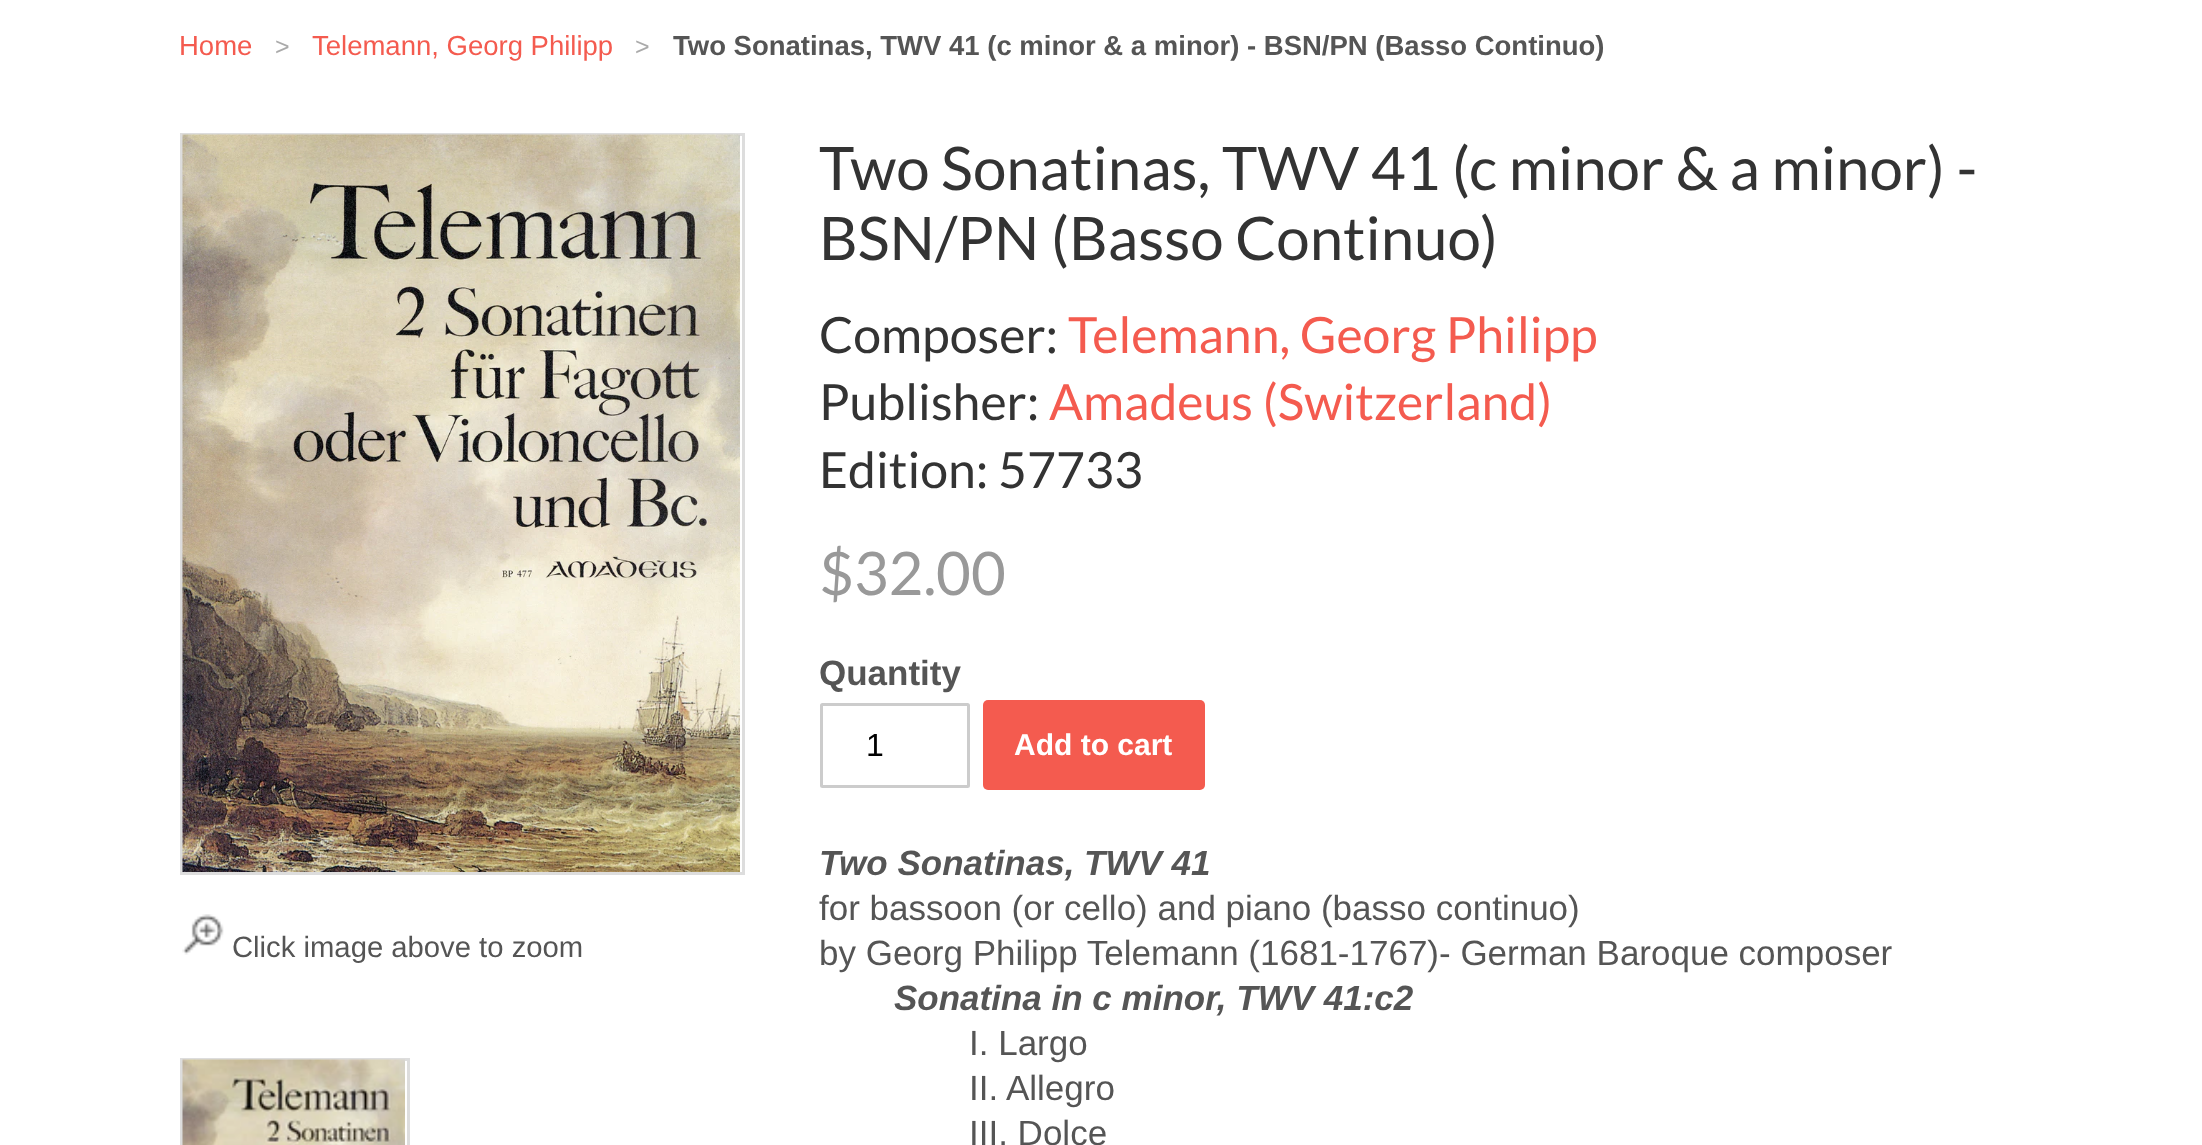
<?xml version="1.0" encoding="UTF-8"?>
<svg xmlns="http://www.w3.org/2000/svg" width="2202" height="1145">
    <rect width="100%" height="100%" fill="#FFFFFF"/>
    <text x="179" y="55" font-family="Liberation Sans" font-size="27.5" fill="#F45B4F">Home</text>
    <text x="275" y="55" font-family="Liberation Sans" font-size="25" fill="#AAAAAA">&gt;</text>
    <text x="312" y="55" font-family="Liberation Sans" font-size="27.5" fill="#F45B4F">Telemann, Georg Philipp</text>
    <text x="635" y="55" font-family="Liberation Sans" font-size="25" fill="#AAAAAA">&gt;</text>
    <text x="673" y="55" font-family="Liberation Sans" font-size="27.5" font-weight="700" fill="#555555">Two Sonatinas, TWV 41 (c minor &amp; a minor) - BSN/PN (Basso Continuo)</text>
    <rect x="181.5" y="134.5" width="562" height="739" fill="none" stroke="#DDDDDD" stroke-width="3"/>
    <image x="182" y="134" width="558" height="738" href="img_01.png"/>
    <image x="182" y="914" width="42" height="41" href="img_02.png"/>
    <text x="232" y="957" font-family="Liberation Sans" font-size="29.25" fill="#555555">Click image above to zoom</text>
    <rect x="181.5" y="1059.5" width="227" height="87" fill="none" stroke="#DDDDDD" stroke-width="3"/>
    <image x="182" y="1059" width="223" height="86" href="img_03.png"/>
    <text font-family="Lato" font-size="60" fill="#333333">
        <tspan x="819" y="190">Two Sonatinas, TWV 41 (c minor &amp; a minor) -</tspan>
        <tspan x="819" y="260">BSN/PN (Basso Continuo)</tspan>
    </text>
    <text x="819" y="353" font-family="Lato" font-size="50" fill="#333333">Composer:</text>
    <text x="1068" y="353" font-family="Lato" font-size="50" fill="#F45B4F">Telemann, Georg Philipp</text>
    <text x="819" y="420" font-family="Lato" font-size="50" fill="#333333">Publisher:</text>
    <text x="1049" y="420" font-family="Lato" font-size="50" fill="#F45B4F">Amadeus (Switzerland)</text>
    <text x="819" y="488" font-family="Lato" font-size="50" fill="#333333">Edition: 57733</text>
    <text x="819" y="595" font-family="Lato" font-size="60" fill="#999999">$32.00</text>
    <text x="819" y="685" font-family="Liberation Sans" font-size="35" font-weight="700" fill="#555555">Quantity</text>
    <rect x="821.5" y="704.5" width="147" height="82" rx="1" fill="none" stroke="#CCCCCC" stroke-width="3"/>
    <text x="866" y="756" font-family="Liberation Sans" font-size="32" fill="#000000">1</text>
    <rect x="983" y="700" width="222" height="90" rx="5" fill="#F45B4F"/>
    <text x="1014" y="755" font-family="Liberation Sans" font-size="30" font-weight="700" fill="#FFFFFF">Add to cart</text>
    <text x="819" y="875" font-family="Liberation Sans" font-size="35" font-weight="700" font-style="italic" fill="#555555">Two Sonatinas, TWV 41</text>
    <text font-family="Liberation Sans" font-size="35" fill="#555555">
        <tspan x="819" y="920">for bassoon (or cello) and piano (basso continuo)</tspan>
        <tspan x="819" y="965">by Georg Philipp Telemann (1681-1767)- German Baroque composer</tspan>
    </text>
    <text x="894" y="1010" font-family="Liberation Sans" font-size="35" font-weight="700" font-style="italic" fill="#555555">Sonatina in c minor, TWV 41:c2</text>
    <text font-family="Liberation Sans" font-size="35" fill="#555555">
        <tspan x="969" y="1055">I. Largo</tspan>
        <tspan x="969" y="1100">II. Allegro</tspan>
        <tspan x="969" y="1145">III. Dolce</tspan>
    </text>
</svg>
